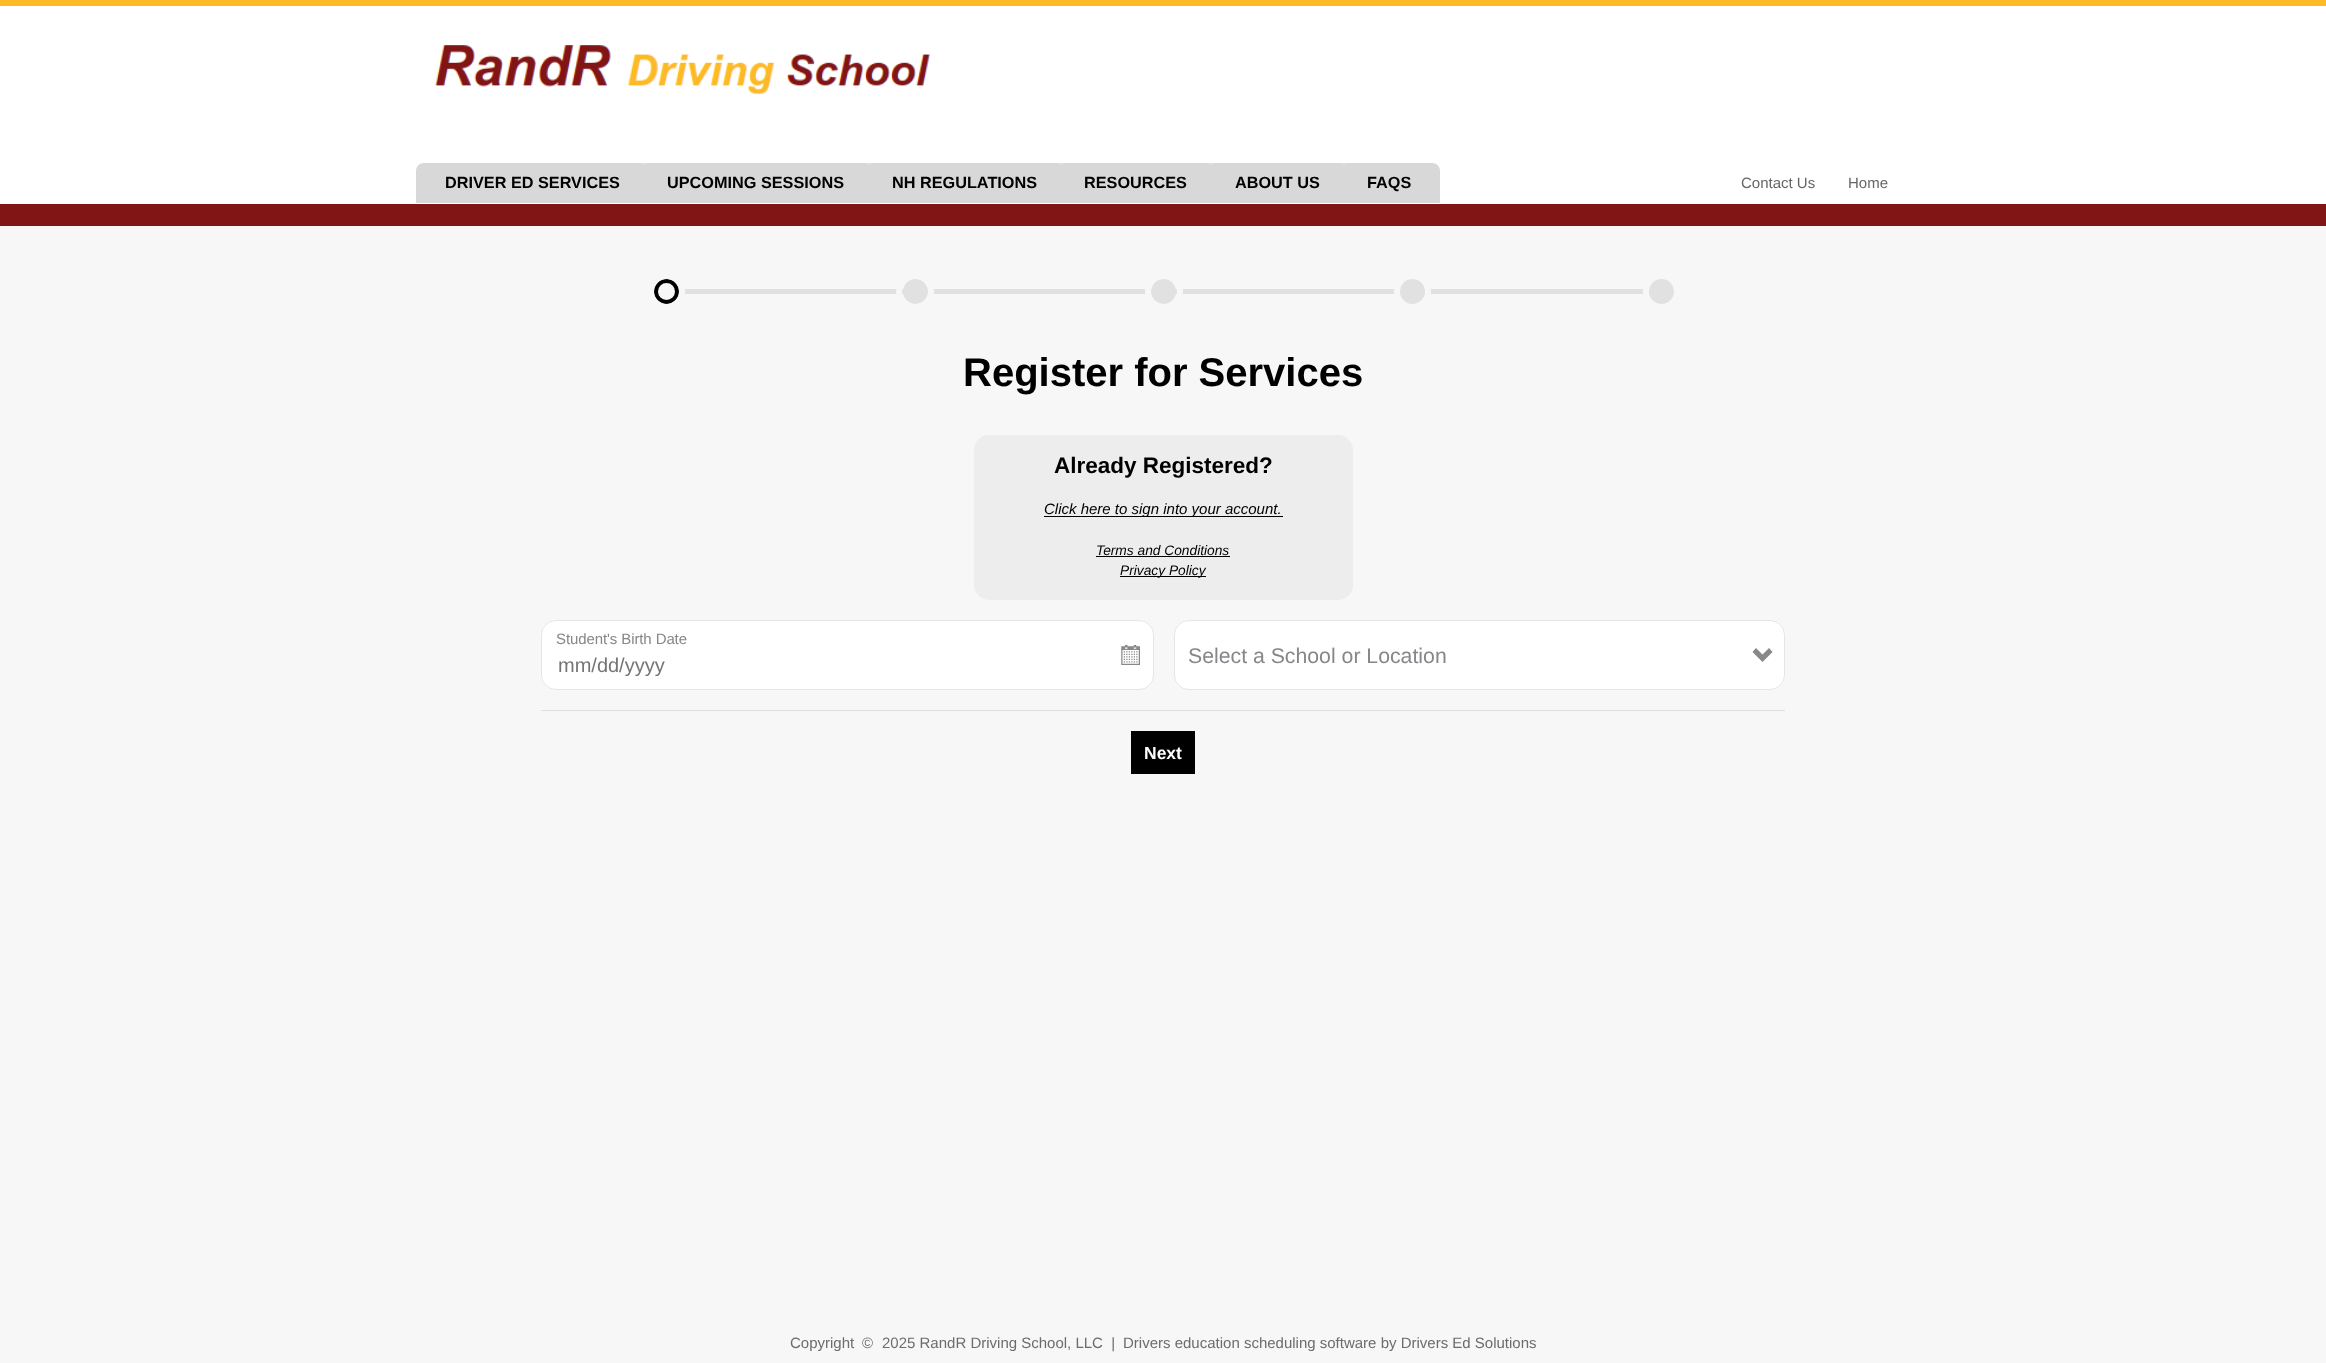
<?xml version="1.0" encoding="UTF-8"?>
<svg xmlns="http://www.w3.org/2000/svg" width="2326" height="1363">
    <defs>
        <clipPath id="clip1"><rect x="558" y="654" width="580" height="22"/></clipPath>
    </defs>
    <rect width="100%" height="100%" fill="#F7F7F7"/>
    <rect x="0" y="6" width="2326" height="198" fill="#FFFFFF"/>
    <rect x="0" y="0" width="2326" height="6" fill="#FDB926"/>
    <rect x="0" y="204" width="2326" height="22" fill="#811515"/>
    <image x="435" y="45" width="495" height="49" href="img_01.png"/>
    <path d="M 424 163 H 641 C 645.5 163 649 166.5 649 171 V 203 H 416 V 171 C 416 166.5 419.5 163 424 163 Z" fill="#D8D8D8"/>
    <text x="445" y="188" font-family="Liberation Sans" font-size="16.25" font-weight="700" fill="#000000">DRIVER ED SERVICES</text>
    <path d="M 647 163 H 866 C 870.5 163 874 166.5 874 171 V 203 H 639 V 171 C 639 166.5 642.5 163 647 163 Z" fill="#D8D8D8"/>
    <text x="667" y="188" font-family="Liberation Sans" font-size="16.25" font-weight="700" fill="#000000">UPCOMING SESSIONS</text>
    <path d="M 872 163 H 1058 C 1062.5 163 1066 166.5 1066 171 V 203 H 864 V 171 C 864 166.5 867.5 163 872 163 Z" fill="#D8D8D8"/>
    <text x="892" y="188" font-family="Liberation Sans" font-size="16.25" font-weight="700" fill="#000000">NH REGULATIONS</text>
    <path d="M 1064 163 H 1208 C 1212.5 163 1216 166.5 1216 171 V 203 H 1056 V 171 C 1056 166.5 1059.5 163 1064 163 Z" fill="#D8D8D8"/>
    <text x="1084" y="188" font-family="Liberation Sans" font-size="16.25" font-weight="700" fill="#000000">RESOURCES</text>
    <path d="M 1214 163 H 1341 C 1345.5 163 1349 166.5 1349 171 V 203 H 1206 V 171 C 1206 166.5 1209.5 163 1214 163 Z" fill="#D8D8D8"/>
    <text x="1235" y="188" font-family="Liberation Sans" font-size="16.25" font-weight="700" fill="#000000">ABOUT US</text>
    <path d="M 1347 163 H 1432 C 1436.5 163 1440 166.5 1440 171 V 203 H 1339 V 171 C 1339 166.5 1342.5 163 1347 163 Z" fill="#D8D8D8"/>
    <text x="1367" y="188" font-family="Liberation Sans" font-size="16.25" font-weight="700" fill="#000000">FAQS</text>
    <text x="1741" y="188" font-family="Liberation Sans" font-size="15" fill="#666666">Contact Us</text>
    <text x="1848" y="188" font-family="Liberation Sans" font-size="15" fill="#666666">Home</text>
    <rect x="678" y="289" width="226" height="5" fill="#E1E1E1"/>
    <circle cx="666.5" cy="291.5" r="10.5" fill="#F7F7F7" stroke="#000000" stroke-width="4"/>
    <circle cx="666.5" cy="291.5" r="15.5" fill="none" stroke="#F7F7F7" stroke-width="6"/>
    <rect x="927" y="289" width="225" height="5" fill="#E1E1E1"/>
    <circle cx="915.5" cy="291.5" r="12.5" fill="#E1E1E1"/>
    <rect x="899" y="276" width="32" height="31" rx="15.5" fill="none" stroke="#F7F7F7" stroke-width="6"/>
    <rect x="1175" y="289" width="226" height="5" fill="#E1E1E1"/>
    <circle cx="1163.5" cy="291.5" r="12.5" fill="#E1E1E1"/>
    <rect x="1148" y="276" width="32" height="31" rx="15.5" fill="none" stroke="#F7F7F7" stroke-width="6"/>
    <rect x="1424" y="289" width="226" height="5" fill="#E1E1E1"/>
    <circle cx="1412.5" cy="291.5" r="15.5" fill="#E1E1E1" stroke="#F7F7F7" stroke-width="6"/>
    <circle cx="1661.5" cy="291.5" r="15.5" fill="#E1E1E1" stroke="#F7F7F7" stroke-width="6"/>
    <text x="963" y="386" font-family="Liberation Sans" font-size="40" font-weight="700" fill="#000000">Register for Services</text>
    <rect x="974" y="435" width="379" height="165" rx="15" fill="#EDEDED"/>
    <text x="1054" y="473" font-family="Liberation Sans" font-size="22.5" font-weight="700" fill="#000000">Already Registered?</text>
    <rect x="1044" y="516" width="239" height="1" fill="#000000"/>
    <text x="1044" y="514" font-family="Liberation Sans" font-size="15" font-style="italic" fill="#000000">Click here to sign into your account.</text>
    <text x="1096" y="555" font-family="Liberation Sans" font-size="13.75" font-style="italic" fill="#000000">Terms and Conditions</text>
    <rect x="1096" y="556" width="134" height="1" fill="#000000"/>
    <rect x="1120" y="576" width="86" height="1" fill="#000000"/>
    <text x="1120" y="575" font-family="Liberation Sans" font-size="13.75" font-style="italic" fill="#000000">Privacy Policy</text>
    <rect x="541" y="620" width="613" height="70" rx="15" fill="#FFFFFF"/>
    <rect x="541.5" y="620.5" width="612" height="69" rx="14.5" fill="none" stroke="#000000" stroke-opacity="0.1"/>
    <text x="556" y="644" font-family="Liberation Sans" font-size="15" letter-spacing="-0.1" fill="#86868B">Student's Birth Date</text>
    <g clip-path="url(#clip1)">
        <text x="558" y="672" font-family="Liberation Sans" font-size="20" fill="#757575">mm/dd/yyyy</text>
    </g>
    <image x="1121" y="645" width="19" height="20" href="img_02.png"/>
    <rect x="1174" y="620" width="611" height="70" rx="15" fill="#FFFFFF"/>
    <rect x="1174.5" y="620.5" width="610" height="69" rx="14.5" fill="none" stroke="#000000" stroke-opacity="0.1"/>
    <text x="1188" y="663" font-family="Liberation Sans" font-size="21.25" fill="#86868B">Select a School or Location</text>
    <path d="M 1772.5 652 L 1769 648 L 1762.5 654.5 L 1756 648 L 1752.5 652 L 1762.5 662 Z" fill="#888888"/>
    <rect x="541" y="710" width="1244" height="1" fill="#DEDEDE"/>
    <rect x="1131" y="731" width="64" height="43" fill="#000000"/>
    <text x="1144" y="759" font-family="Liberation Sans" font-size="17.5" font-weight="700" fill="#FFFFFF">Next</text>
    <text x="790" y="1348" font-family="Liberation Sans" font-size="15" fill="#6C6C6C">Copyright</text>
    <text x="862" y="1348" font-family="Liberation Sans" font-size="15" fill="#6C6C6C">©</text>
    <text x="882" y="1348" font-family="Liberation Sans" font-size="15" fill="#6C6C6C" xml:space="preserve">2025 RandR Driving School, LLC  |</text>
    <text x="1123" y="1348" font-family="Liberation Sans" font-size="15" fill="#6C6C6C">Drivers education scheduling software by Drivers Ed Solutions</text>
</svg>
